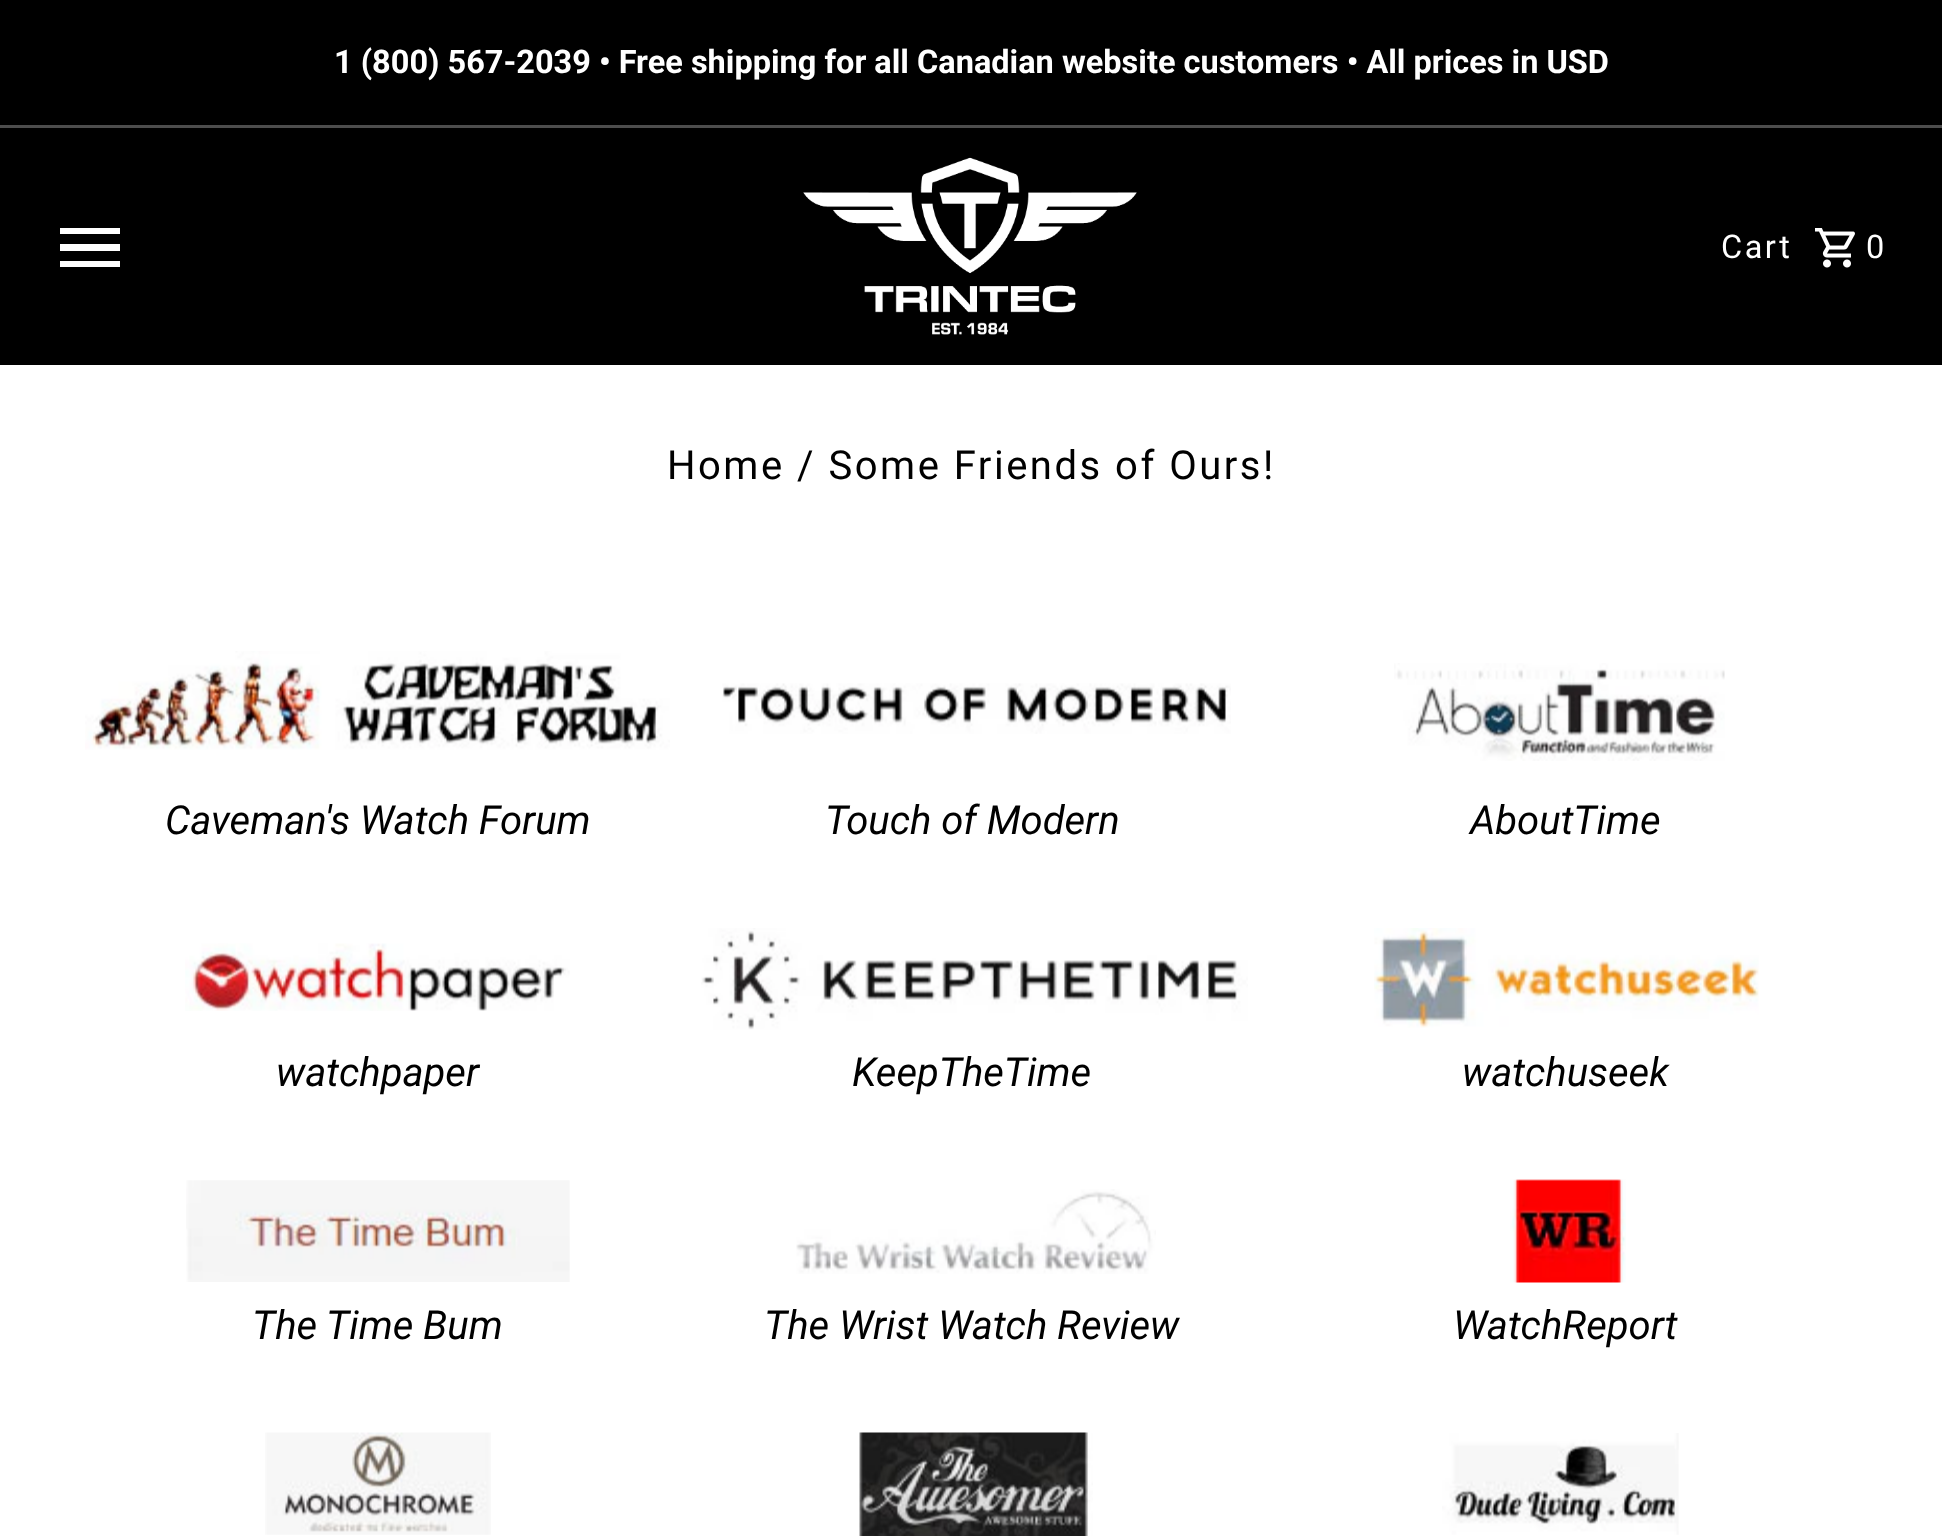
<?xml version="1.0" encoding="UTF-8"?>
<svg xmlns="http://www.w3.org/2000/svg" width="1942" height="1536">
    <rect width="100%" height="100%" fill="#FFFFFF"/>
    <rect x="0" y="125" width="1942" height="3" fill="#4D4D4D"/>
    <rect x="0" y="0" width="1942" height="125" fill="#000000"/>
    <text x="334" y="73" font-family="Roboto" font-size="32.5" font-weight="700" fill="#FFFFFF">1 (800) 567-2039 • Free shipping for all Canadian website customers • All prices in USD</text>
    <rect x="0" y="128" width="1942" height="237" fill="#000000"/>
    <rect x="60" y="261" width="60" height="6" fill="#FFFFFF"/>
    <rect x="60" y="244" width="60" height="7" fill="#FFFFFF"/>
    <rect x="60" y="228" width="60" height="6" fill="#FFFFFF"/>
    <image x="803" y="157" width="334" height="178" href="img_01.png"/>
    <text x="1721" y="258" font-family="Roboto" font-size="32.5" letter-spacing="2.5" fill="#FFFFFF">Cart</text>
    <image x="1815" y="228" width="40" height="40" href="img_02.png"/>
    <text x="1866" y="258" font-family="Roboto" font-size="32.5" letter-spacing="2.5" fill="#FFFFFF">0</text>
    <text x="667" y="479" font-family="Roboto" font-size="40" letter-spacing="2.5" fill="#000000">Home / Some Friends of Ours!</text>
    <image x="85" y="651" width="585" height="99" href="img_03.png"/>
    <image x="722" y="683" width="509" height="51" href="img_04.png"/>
    <image x="1394" y="663" width="331" height="98" href="img_05.png"/>
    <text x="165" y="834" font-family="Roboto" font-size="40" font-style="italic" fill="#000000">Caveman's Watch Forum</text>
    <text x="825" y="834" font-family="Roboto" font-size="40" font-style="italic" fill="#000000">Touch of Modern</text>
    <text x="1470" y="834" font-family="Roboto" font-size="40" font-style="italic" fill="#000000">AboutTime</text>
    <image x="185" y="943" width="385" height="68" href="img_06.png"/>
    <image x="701" y="928" width="547" height="102" href="img_07.png"/>
    <image x="1374" y="928" width="385" height="100" href="img_08.png"/>
    <text x="276" y="1086" font-family="Roboto" font-size="40" font-style="italic" fill="#000000">watchpaper</text>
    <text x="852" y="1086" font-family="Roboto" font-size="40" font-style="italic" fill="#000000">KeepTheTime</text>
    <text x="1462" y="1086" font-family="Roboto" font-size="40" font-style="italic" fill="#000000">watchuseek</text>
    <image x="186" y="1180" width="384" height="102" href="img_09.png"/>
    <image x="796" y="1189" width="360" height="85" href="img_10.png"/>
    <image x="1510" y="1179" width="116" height="104" href="img_11.png"/>
    <text x="252" y="1339" font-family="Roboto" font-size="40" font-style="italic" fill="#000000">The Time Bum</text>
    <text x="764" y="1339" font-family="Roboto" font-size="40" font-style="italic" fill="#000000">The Wrist Watch Review</text>
    <text x="1453" y="1339" font-family="Roboto" font-size="40" font-style="italic" fill="#000000">WatchReport</text>
    <image x="265" y="1432" width="226" height="103" href="img_12.png"/>
    <image x="859" y="1432" width="234" height="104" href="img_13.png"/>
    <image x="1442" y="1433" width="237" height="102" href="img_14.png"/>
</svg>
